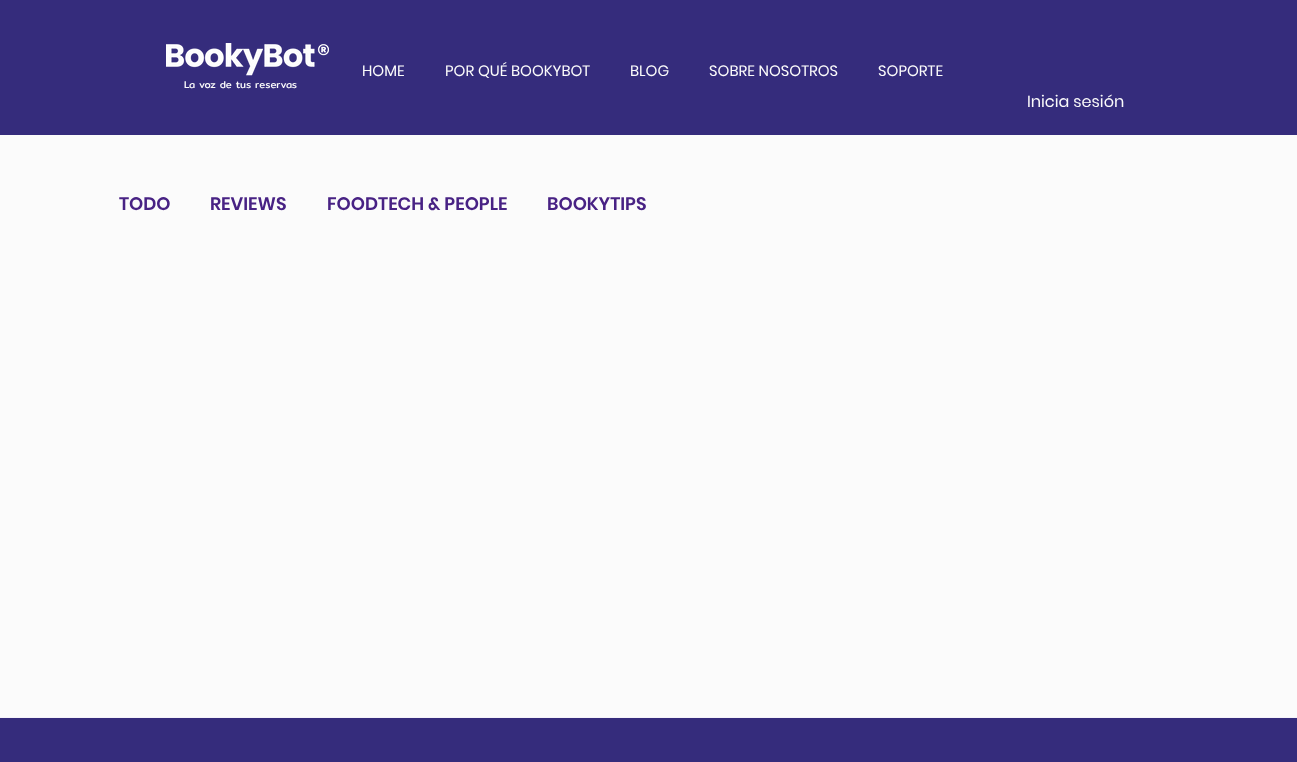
<?xml version="1.0" encoding="UTF-8"?>
<svg xmlns="http://www.w3.org/2000/svg" width="1297" height="762">
    <rect width="100%" height="100%" fill="#FBFBFB"/>
    <rect x="0" y="0" width="1297" height="135" fill="#352C7C"/>
    <image x="166" y="43" width="163" height="33" href="img_01.png"/>
    <text x="362" y="76" font-family="Poppins" font-size="15" fill="#FBFBFB">HOME</text>
    <text x="445" y="76" font-family="Poppins" font-size="15" fill="#FBFBFB">POR QUÉ BOOKYBOT</text>
    <text x="630" y="76" font-family="Poppins" font-size="15" fill="#FBFBFB">BLOG</text>
    <text x="709" y="76" font-family="Poppins" font-size="15" fill="#FBFBFB">SOBRE NOSOTROS</text>
    <text x="878" y="76" font-family="Poppins" font-size="15" fill="#FBFBFB">SOPORTE</text>
    <text x="184" y="88" font-family="Mitr" font-size="10" fill="#FBFBFB">La voz de tus reservas</text>
    <text x="1027" y="107" font-family="Poppins" font-size="16" fill="#FBFBFB">Inicia sesión</text>
    <text x="119" y="210" font-family="Poppins" font-size="18" font-weight="600" fill="#482284">TODO</text>
    <text x="210" y="210" font-family="Poppins" font-size="18" font-weight="600" fill="#482284">REVIEWS</text>
    <text x="327" y="210" font-family="Poppins" font-size="18" font-weight="600" fill="#482284">FOODTECH &amp; PEOPLE</text>
    <text x="547" y="210" font-family="Poppins" font-size="18" font-weight="600" fill="#482284">BOOKYTIPS</text>
    <rect x="0" y="717" width="1297" height="1" fill="#F5F3FA"/>
    <rect x="0" y="718" width="1297" height="44" fill="#352C7C"/>
</svg>
